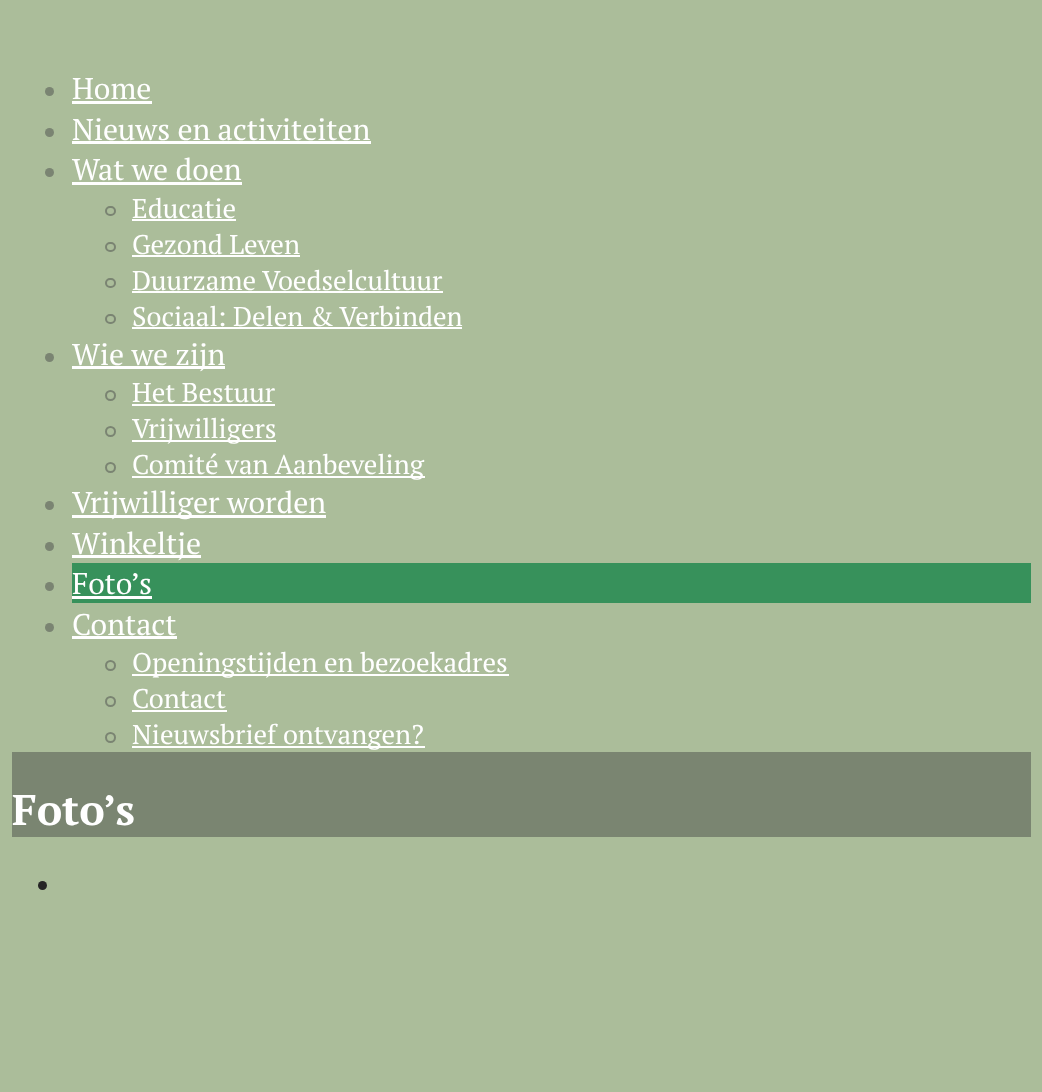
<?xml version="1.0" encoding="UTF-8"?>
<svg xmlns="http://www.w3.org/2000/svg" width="1042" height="1092">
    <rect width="100%" height="100%" fill="#ABBD9A"/>
    <rect x="12" y="752" width="1019" height="85" fill="#7A8571"/>
    <circle cx="49.5" cy="91.5" r="4.5" fill="#7A8472"/>
    <text x="72" y="99" font-family="PT Serif" font-size="30" fill="#FFFFFF">Home</text>
    <rect x="72" y="101" width="80" height="3" fill="#FFFFFF"/>
    <circle cx="49.5" cy="132.5" r="4.5" fill="#7A8472"/>
    <text x="72" y="140" font-family="PT Serif" font-size="30" fill="#FFFFFF">Nieuws en activiteiten</text>
    <rect x="72" y="141" width="299" height="3" fill="#FFFFFF"/>
    <circle cx="49.5" cy="172.5" r="4.5" fill="#7A8472"/>
    <text x="72" y="180" font-family="PT Serif" font-size="30" fill="#FFFFFF">Wat we doen</text>
    <rect x="72" y="182" width="170" height="3" fill="#FFFFFF"/>
    <rect x="106" y="207" width="9" height="8" rx="4" fill="none" stroke="#7A8472" stroke-width="2"/>
    <text x="132" y="218" font-family="PT Serif" font-size="27" fill="#FFFFFF">Educatie</text>
    <rect x="132" y="219" width="104" height="2" fill="#FFFFFF"/>
    <rect x="106" y="243" width="9" height="8" rx="4" fill="none" stroke="#7A8472" stroke-width="2"/>
    <text x="132" y="254" font-family="PT Serif" font-size="27" fill="#FFFFFF">Gezond Leven</text>
    <rect x="132" y="255" width="168" height="2" fill="#FFFFFF"/>
    <rect x="106" y="279" width="9" height="8" rx="4" fill="none" stroke="#7A8472" stroke-width="2"/>
    <text x="132" y="290" font-family="PT Serif" font-size="27" fill="#FFFFFF">Duurzame Voedselcultuur</text>
    <rect x="132" y="291" width="311" height="2" fill="#FFFFFF"/>
    <rect x="106" y="315" width="9" height="8" rx="4" fill="none" stroke="#7A8472" stroke-width="2"/>
    <text x="132" y="326" font-family="PT Serif" font-size="27" fill="#FFFFFF">Sociaal: Delen &amp; Verbinden</text>
    <rect x="132" y="327" width="330" height="2" fill="#FFFFFF"/>
    <circle cx="49.5" cy="357.5" r="4.5" fill="#7A8472"/>
    <rect x="72" y="366" width="153" height="3" fill="#FFFFFF"/>
    <text x="72" y="365" font-family="PT Serif" font-size="30" fill="#FFFFFF">Wie we zijn</text>
    <circle cx="110.5" cy="395.5" r="4.5" fill="none" stroke="#7A8472" stroke-width="2"/>
    <text x="132" y="402" font-family="PT Serif" font-size="27" fill="#FFFFFF">Het Bestuur</text>
    <rect x="132" y="404" width="143" height="2" fill="#FFFFFF"/>
    <circle cx="110.5" cy="431.5" r="4.5" fill="none" stroke="#7A8472" stroke-width="2"/>
    <rect x="132" y="440" width="144" height="2" fill="#FFFFFF"/>
    <text x="132" y="438" font-family="PT Serif" font-size="27" fill="#FFFFFF">Vrijwilligers</text>
    <circle cx="110.5" cy="467.5" r="4.5" fill="none" stroke="#7A8472" stroke-width="2"/>
    <rect x="132" y="476" width="293" height="2" fill="#FFFFFF"/>
    <text x="132" y="474" font-family="PT Serif" font-size="27" fill="#FFFFFF">Comité van Aanbeveling</text>
    <circle cx="49.5" cy="505.5" r="4.5" fill="#7A8472"/>
    <rect x="72" y="515" width="254" height="3" fill="#FFFFFF"/>
    <text x="72" y="513" font-family="PT Serif" font-size="30" fill="#FFFFFF">Vrijwilliger worden</text>
    <circle cx="49.5" cy="546.5" r="4.5" fill="#7A8472"/>
    <rect x="72" y="555" width="129" height="3" fill="#FFFFFF"/>
    <text x="72" y="554" font-family="PT Serif" font-size="30" fill="#FFFFFF">Winkeltje</text>
    <rect x="72" y="563" width="959" height="40" fill="#37915B"/>
    <circle cx="49.5" cy="586.5" r="4.5" fill="#7A8472"/>
    <text x="72" y="594" font-family="PT Serif" font-size="30" fill="#FFFFFF">Foto’s</text>
    <rect x="72" y="596" width="80" height="3" fill="#FFFFFF"/>
    <circle cx="49.5" cy="627.5" r="4.5" fill="#7A8472"/>
    <text x="72" y="635" font-family="PT Serif" font-size="30" fill="#FFFFFF">Contact</text>
    <rect x="72" y="636" width="105" height="3" fill="#FFFFFF"/>
    <circle cx="110.5" cy="665.5" r="4.5" fill="none" stroke="#7A8472" stroke-width="2"/>
    <rect x="132" y="674" width="377" height="2" fill="#FFFFFF"/>
    <text x="132" y="672" font-family="PT Serif" font-size="27" fill="#FFFFFF">Openingstijden en bezoekadres</text>
    <circle cx="110.5" cy="701.5" r="4.5" fill="none" stroke="#7A8472" stroke-width="2"/>
    <text x="132" y="708" font-family="PT Serif" font-size="27" fill="#FFFFFF">Contact</text>
    <rect x="132" y="710" width="95" height="2" fill="#FFFFFF"/>
    <circle cx="110.5" cy="737.5" r="4.5" fill="none" stroke="#7A8472" stroke-width="2"/>
    <rect x="132" y="746" width="293" height="2" fill="#FFFFFF"/>
    <text x="132" y="744" font-family="PT Serif" font-size="27" fill="#FFFFFF">Nieuwsbrief ontvangen?</text>
    <text x="12" y="825" font-family="PT Serif" font-size="43" font-weight="700" fill="#FFFFFF">Foto’s</text>
    <circle cx="42.5" cy="885.5" r="4.5" fill="#252525"/>
</svg>
